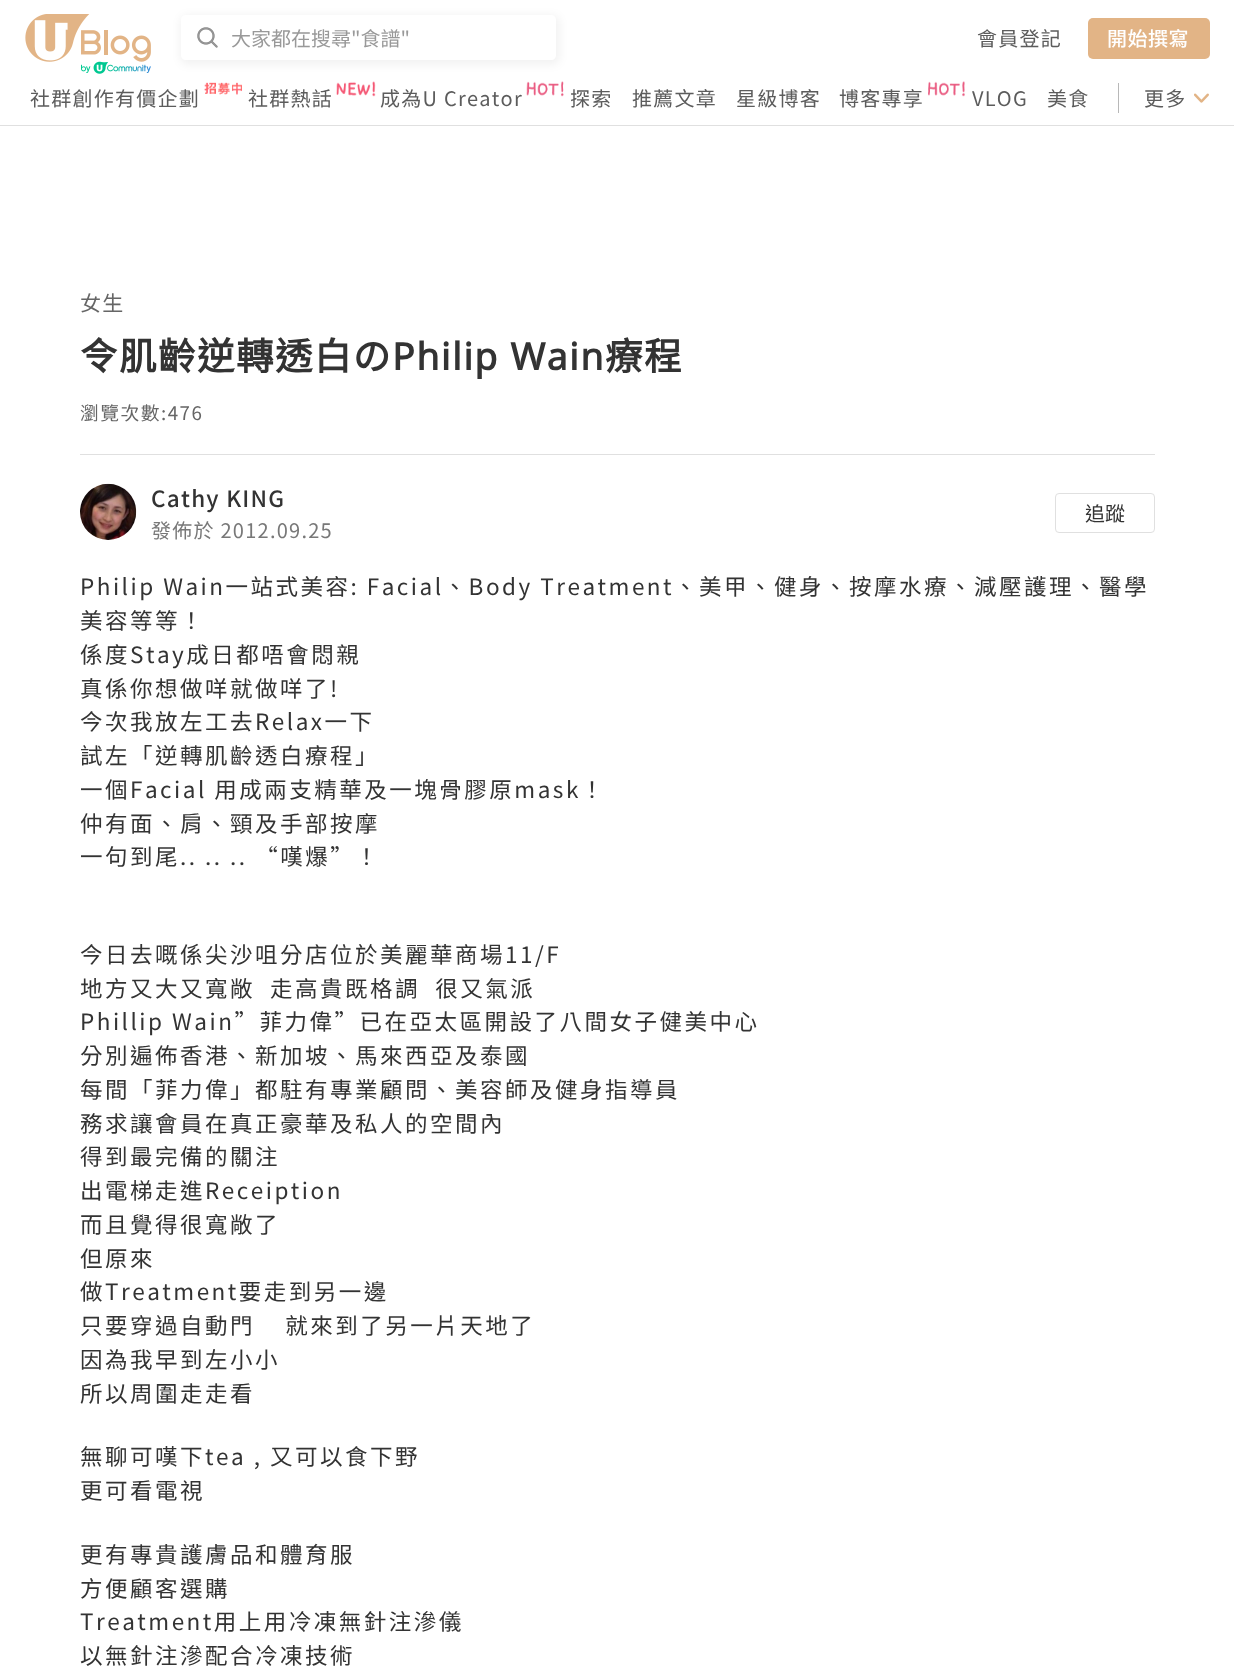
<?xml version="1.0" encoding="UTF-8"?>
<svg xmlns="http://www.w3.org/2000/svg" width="1234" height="1675">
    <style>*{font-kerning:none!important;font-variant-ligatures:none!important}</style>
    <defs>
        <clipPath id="clip1"><path d="M 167 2 H 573 V 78 H 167 Z M 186 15 H 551 C 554 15 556 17 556 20 V 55 C 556 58 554 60 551 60 H 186 C 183 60 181 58 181 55 V 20 C 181 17 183 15 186 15 Z" clip-rule="evenodd"/></clipPath>
        <filter id="blur1" x="-50%" y="-200%" width="200%" height="500%"><feGaussianBlur stdDeviation="4"/></filter>
    </defs>
    <rect width="100%" height="100%" fill="#FFFFFF"/>
    <image x="25" y="14" width="126" height="60" href="img_01.png"/>
    <g clip-path="url(#clip1)">
        <rect x="180" y="15" width="380" height="50" rx="8" fill="#000000" fill-opacity="0.05" filter="url(#blur1)"/>
    </g>
    <image x="197" y="27" width="21" height="21" href="img_02.png"/>
    <text x="231" y="46" font-family="Noto Sans TC" font-size="20" fill="#999999">大家都在搜尋"食譜"</text>
    <text x="977" y="46" font-family="Noto Sans TC" font-size="20" letter-spacing="1.25" fill="#5C5C5C">會員登記</text>
    <rect x="1088" y="18" width="122" height="41" rx="5" fill="#E2B486"/>
    <text x="1107" y="46" font-family="Noto Sans TC" font-size="20" font-weight="500" letter-spacing="0.5" fill="#FFFFFF">開始撰寫</text>
    <rect x="0" y="125" width="1234" height="1" fill="#E0E0E0"/>
    <text x="30" y="106" font-family="Noto Sans TC" font-size="20" letter-spacing="1.25" fill="#5C5C5C">社群創作有價企劃</text>
    <image x="204" y="82" width="38" height="13" href="img_03.png"/>
    <text x="248" y="106" font-family="Noto Sans TC" font-size="20" letter-spacing="1.25" fill="#5C5C5C">社群熱話</text>
    <image x="336" y="81" width="40" height="16" href="img_04.png"/>
    <text x="380" y="106" font-family="Noto Sans TC" font-size="20" letter-spacing="1.25" fill="#5C5C5C">成為U Creator</text>
    <image x="526" y="81" width="38" height="16" href="img_05.png"/>
    <text x="570" y="106" font-family="Noto Sans TC" font-size="20" letter-spacing="1.25" fill="#5C5C5C">探索</text>
    <text x="632" y="106" font-family="Noto Sans TC" font-size="20" letter-spacing="1.25" fill="#5C5C5C">推薦文章</text>
    <text x="736" y="106" font-family="Noto Sans TC" font-size="20" letter-spacing="1.25" fill="#5C5C5C">星級博客</text>
    <text x="839" y="106" font-family="Noto Sans TC" font-size="20" letter-spacing="1.25" fill="#5C5C5C">博客專享</text>
    <image x="928" y="81" width="37" height="16" href="img_06.png"/>
    <text x="972" y="106" font-family="Noto Sans TC" font-size="20" letter-spacing="1.25" fill="#5C5C5C">VLOG</text>
    <text x="1047" y="106" font-family="Noto Sans TC" font-size="20" letter-spacing="1.25" fill="#5C5C5C">美食</text>
    <rect x="1118" y="83" width="1" height="30" fill="#B8B8B8"/>
    <text x="1144" y="106" font-family="Noto Sans TC" font-size="20" letter-spacing="1.25" fill="#5C5C5C">更多</text>
    <image x="1194" y="93" width="15" height="10" href="img_07.png"/>
    <text x="80" y="311" font-family="Noto Sans TC" font-size="21" letter-spacing="1.25" fill="#666666">女生</text>
    <rect x="80" y="454" width="1075" height="1" fill="#E0E0E0"/>
    <text x="80" y="370" font-family="Noto Sans CJK HK" font-size="37.5" font-weight="700" letter-spacing="1.5" fill="#333333">令肌齡逆轉透白の</text>
    <text x="392" y="370" font-family="Noto Sans" font-size="37.5" font-weight="700" letter-spacing="1.5" fill="#333333">Philip Wain</text>
    <text x="605" y="370" font-family="Noto Sans CJK HK" font-size="37.5" font-weight="700" letter-spacing="1.5" fill="#333333">療程</text>
    <text x="80" y="420" font-family="Noto Sans TC" font-size="18.75" letter-spacing="1.5" fill="#666666">瀏覽次數:476</text>
    <image x="80" y="483" width="57" height="57" href="img_08.png"/>
    <text x="151" y="507" font-family="Noto Sans TC" font-size="22.5" font-weight="500" letter-spacing="1.25" fill="#333333">Cathy KING</text>
    <text x="151" y="538" font-family="Noto Sans TC" font-size="20" letter-spacing="1.25" fill="#787878">發佈於 2012.09.25</text>
    <rect x="1055.5" y="493.5" width="99" height="39" rx="3.5" fill="none" stroke="#E0E0E0"/>
    <text x="1085" y="521" font-family="Noto Sans TC" font-size="20" fill="#333333">追蹤</text>
    <text font-family="Noto Sans TC" font-size="22.5" letter-spacing="2.5" fill="#333333">
        <tspan x="80" y="595">Philip Wain一站式美容: Facial、Body Treatment、美甲、健身、按摩水療、減壓護理、醫學</tspan>
        <tspan x="80" y="629">美容等等！</tspan>
        <tspan x="80" y="663">係度Stay成日都唔會悶親</tspan>
        <tspan x="80" y="697">真係你想做咩就做咩了!</tspan>
        <tspan x="80" y="730">今次我放左工去Relax一下</tspan>
        <tspan x="80" y="764">試左「逆轉肌齡透白療程」</tspan>
        <tspan x="80" y="798">一個Facial 用成兩支精華及一塊骨膠原mask！</tspan>
        <tspan x="80" y="832">仲有面、肩、頸及手部按摩</tspan>
        <tspan x="80" y="865">一句到尾.. .. .. “嘆爆”！</tspan>
    </text>
    <text font-family="Noto Sans TC" font-size="22.5" letter-spacing="2.5" fill="#333333" xml:space="preserve"><tspan x="80" y="963">今日去嘅係尖沙咀分店位於美麗華商場11/F</tspan><tspan x="80" y="997">地方又大又寬敞  走高貴既格調  很又氣派</tspan><tspan x="80" y="1030">Phillip Wain”菲力偉”已在亞太區開設了八間女子健美中心</tspan><tspan x="80" y="1064">分別遍佈香港、新加坡、馬來西亞及泰國</tspan><tspan x="80" y="1098">每間「菲力偉」都駐有專業顧問、美容師及健身指導員</tspan><tspan x="80" y="1132">務求讓會員在真正豪華及私人的空間內</tspan><tspan x="80" y="1165">得到最完備的關注</tspan><tspan x="80" y="1199">出電梯走進Receiption</tspan><tspan x="80" y="1233">而且覺得很寬敞了</tspan><tspan x="80" y="1267">但原來</tspan><tspan x="80" y="1300">做Treatment要走到另一邊</tspan><tspan x="80" y="1334">只要穿過自動門    就來到了另一片天地了</tspan><tspan x="80" y="1368">因為我早到左小小</tspan><tspan x="80" y="1402">所以周圍走走看</tspan></text>
    <text font-family="Noto Sans TC" font-size="22.5" letter-spacing="2.5" fill="#333333">
        <tspan x="80" y="1465">無聊可嘆下tea , 又可以食下野</tspan>
        <tspan x="80" y="1499">更可看電視</tspan>
    </text>
    <text font-family="Noto Sans TC" font-size="22.5" letter-spacing="2.5" fill="#333333">
        <tspan x="80" y="1563">更有專貴護膚品和體育服</tspan>
        <tspan x="80" y="1597">方便顧客選購</tspan>
        <tspan x="80" y="1630">Treatment用上用冷凍無針注滲儀</tspan>
        <tspan x="80" y="1664">以無針注滲配合冷凍技術</tspan>
    </text>
</svg>
